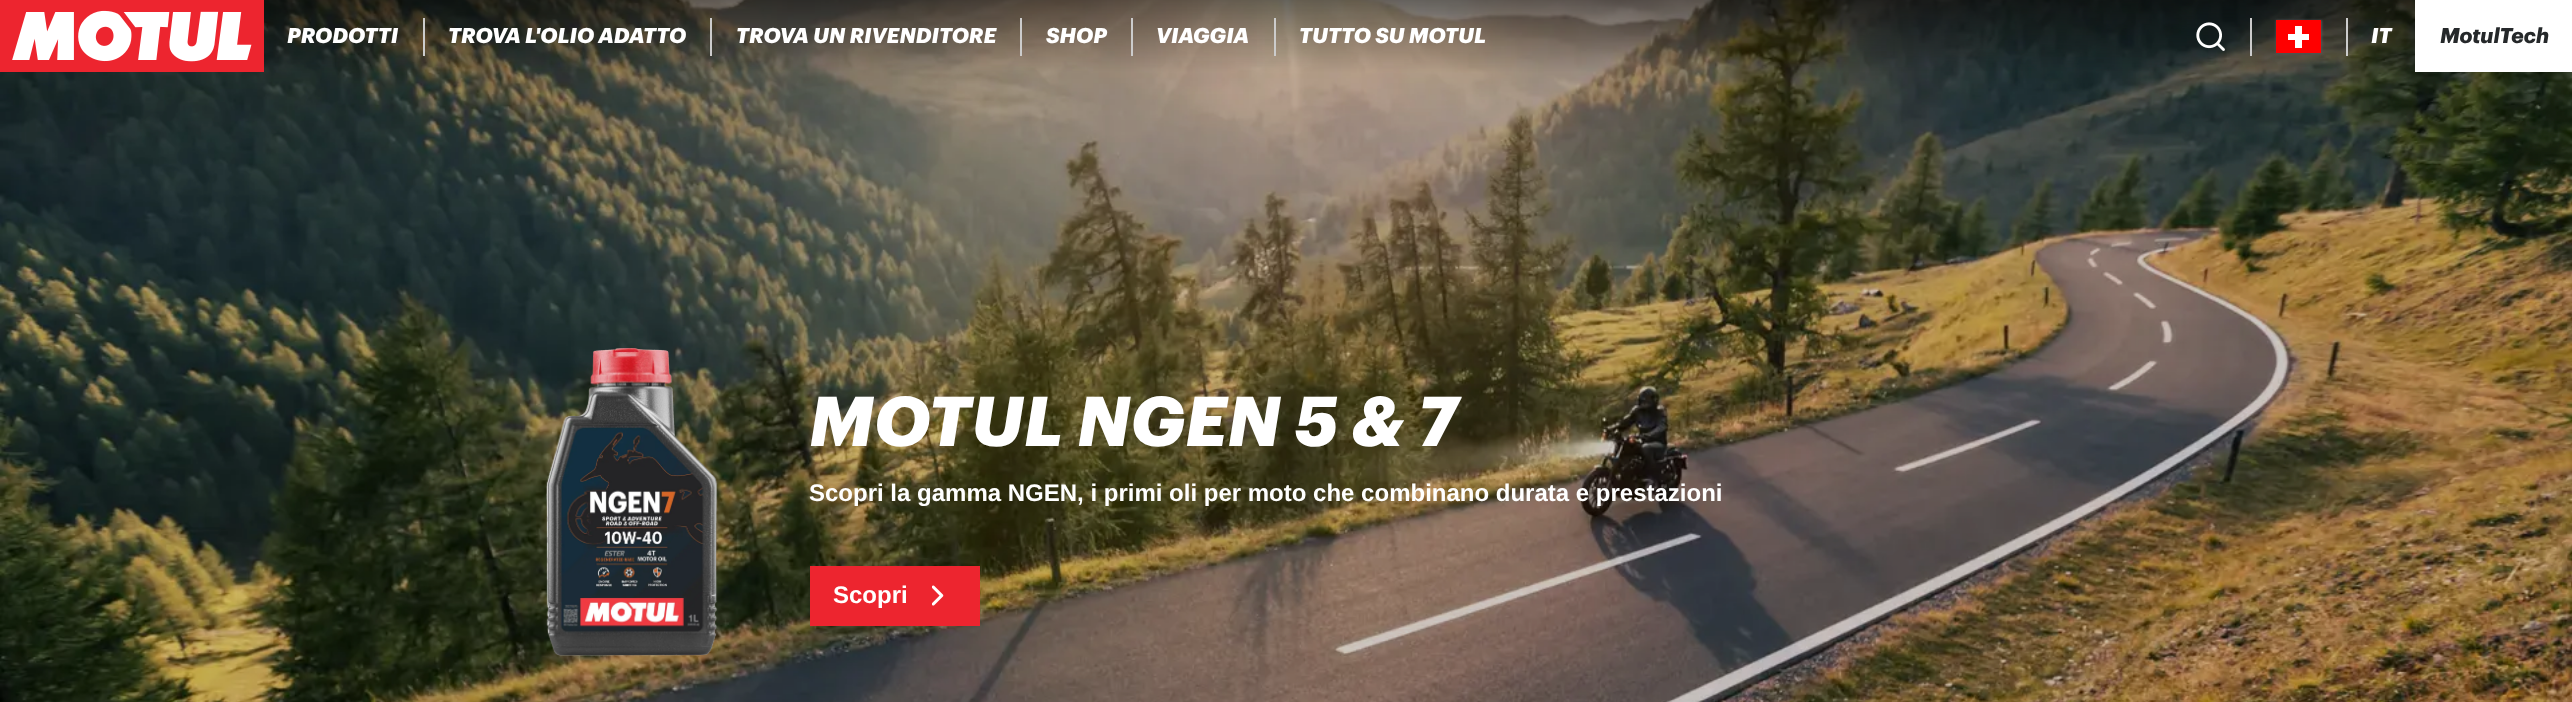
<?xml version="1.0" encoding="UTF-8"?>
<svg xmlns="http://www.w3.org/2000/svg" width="2572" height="702">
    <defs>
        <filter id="blur1" x="-50%" y="-200%" width="200%" height="500%"><feGaussianBlur stdDeviation="1"/></filter>
    </defs>
    <rect width="100%" height="100%" fill="#FFFFFF"/>
    <image x="0" y="0" width="2572" height="702" href="img_03.png"/>
    <rect x="0" y="0" width="264" height="72" fill="#ED252F"/>
    <image x="12" y="10" width="240" height="52" href="img_01.png"/>
    <text x="287" y="43" font-family="Graphik" font-size="21" font-weight="700" font-style="italic" fill="#FFFFFF">PRODOTTI</text>
    <rect x="423" y="18" width="2" height="38" fill="#CCCCCC"/>
    <text x="448" y="43" font-family="Graphik" font-size="21" font-weight="700" font-style="italic" fill="#FFFFFF">TROVA L'OLIO ADATTO</text>
    <rect x="710" y="18" width="2" height="38" fill="#CCCCCC"/>
    <text x="736" y="43" font-family="Graphik" font-size="21" font-weight="700" font-style="italic" fill="#FFFFFF">TROVA UN RIVENDITORE</text>
    <rect x="1020" y="18" width="2" height="38" fill="#CCCCCC"/>
    <text x="1046" y="43" font-family="Graphik" font-size="21" font-weight="700" font-style="italic" fill="#FFFFFF">SHOP</text>
    <rect x="1131" y="18" width="2" height="38" fill="#CCCCCC"/>
    <text x="1156" y="43" font-family="Graphik" font-size="21" font-weight="700" font-style="italic" fill="#FFFFFF">VIAGGIA</text>
    <rect x="1274" y="18" width="2" height="38" fill="#CCCCCC"/>
    <text x="1299" y="43" font-family="Graphik" font-size="21" font-weight="700" font-style="italic" fill="#FFFFFF">TUTTO SU MOTUL</text>
    <image x="2196" y="22" width="29" height="29" href="img_02.png"/>
    <rect x="2250" y="18" width="2" height="38" fill="#CCCCCC"/>
    <rect x="2276" y="20" width="46" height="34" fill="#515355" filter="url(#blur1)"/>
    <rect x="2276" y="20" width="45" height="33" fill="#FF0000"/>
    <rect x="2288" y="34" width="21" height="6" fill="#FFFFFF"/>
    <rect x="2295" y="26" width="7" height="22" fill="#FFFFFF"/>
    <rect x="2346" y="18" width="2" height="38" fill="#CCCCCC"/>
    <text x="2371" y="43" font-family="Graphik" font-size="21" font-weight="700" font-style="italic" fill="#FFFFFF">IT</text>
    <rect x="2415" y="0" width="157" height="72" fill="#FFFFFF"/>
    <text x="2440" y="43" font-family="Graphik" font-size="21" font-weight="700" font-style="italic" fill="#25282A">MotulTech</text>
    <image x="546" y="348" width="172" height="308" href="img_04.png"/>
    <text x="809" y="446" font-family="Graphik" font-size="69" font-weight="700" font-style="italic" fill="#FFFFFF">MOTUL NGEN 5 &amp; 7</text>
    <text x="809" y="501" font-family="Liberation Sans" font-size="24" font-weight="700" fill="#FFFFFF">Scopri la gamma NGEN, i primi oli per moto che combinano durata e prestazioni</text>
    <rect x="810" y="566" width="170" height="60" fill="#ED252F"/>
    <text x="833" y="603" font-family="Liberation Sans" font-size="24" font-weight="700" fill="#FFFFFF">Scopri</text>
    <image x="932" y="585" width="12" height="21" href="img_05.png"/>
</svg>
